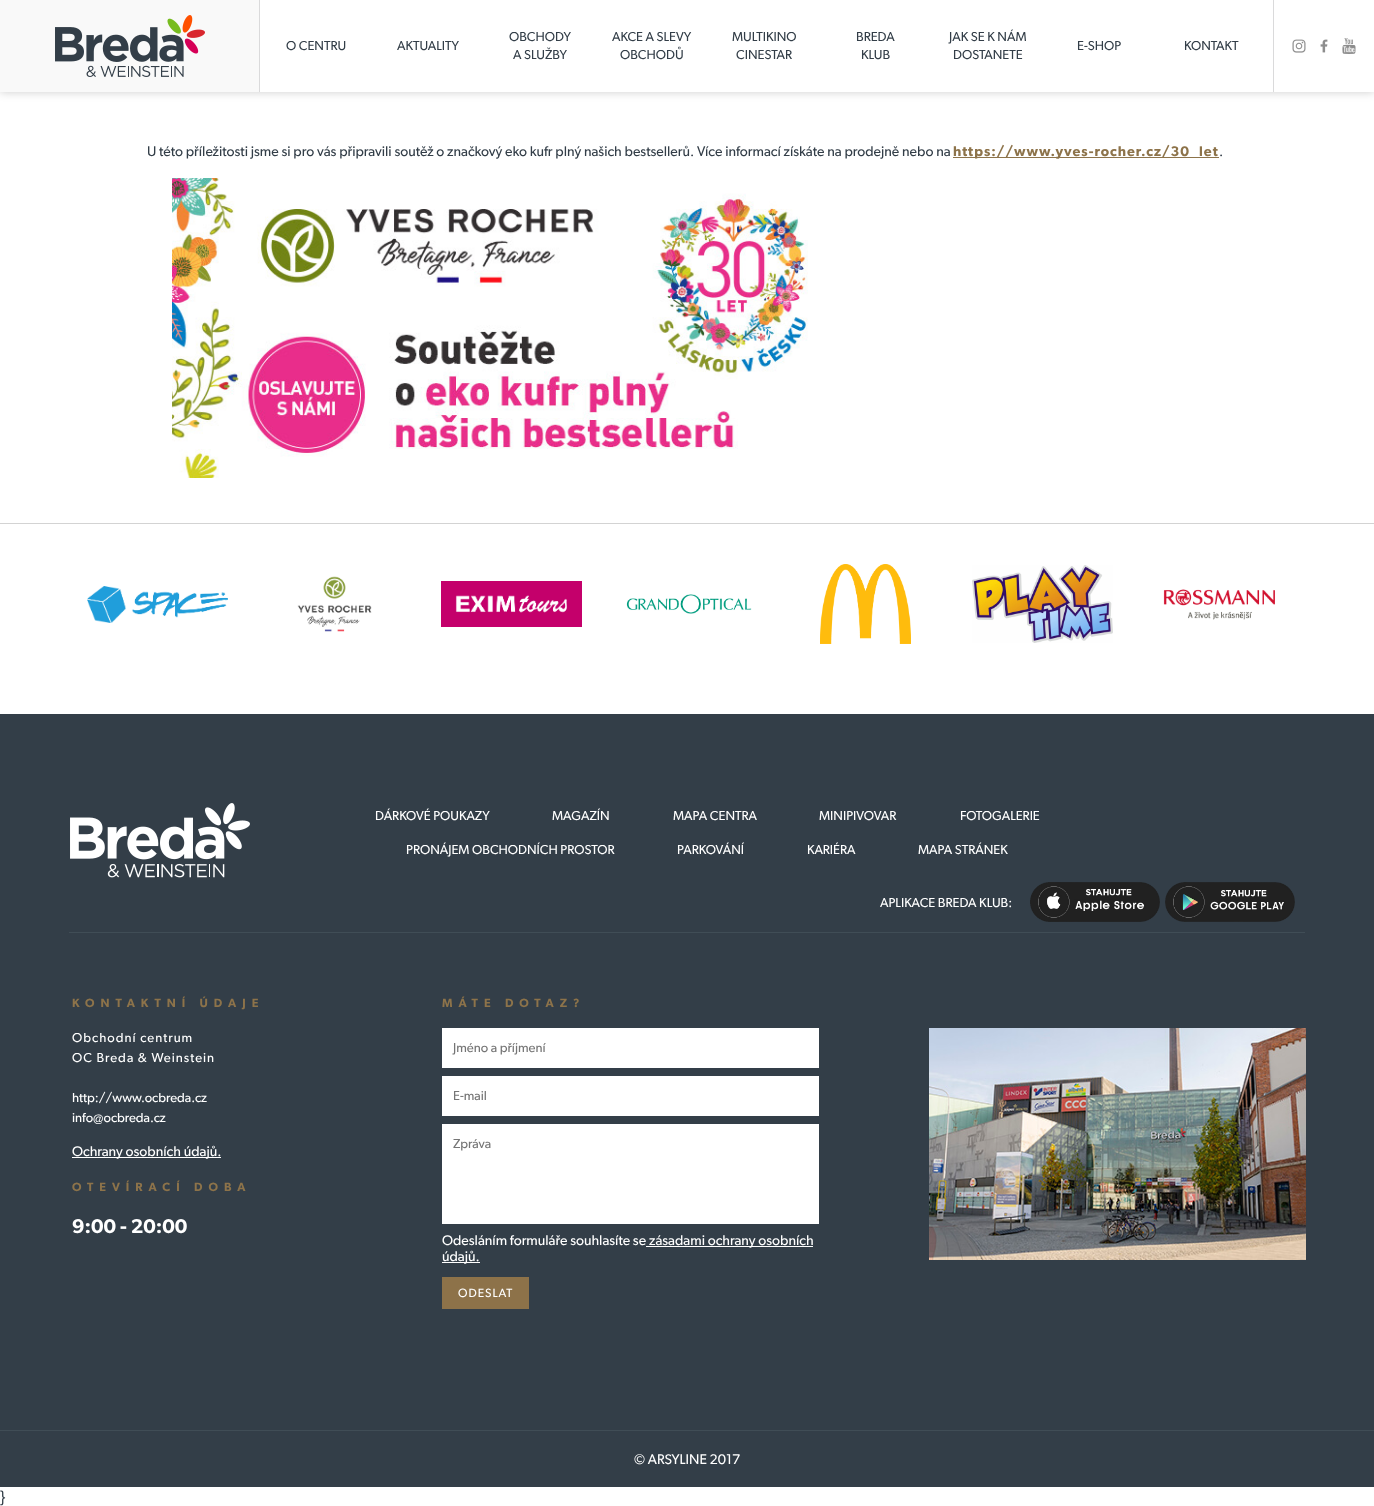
<?xml version="1.0" encoding="UTF-8"?>
<svg xmlns="http://www.w3.org/2000/svg" width="1374" height="1506">
    <defs>
        <filter id="blur1" x="-50%" y="-200%" width="200%" height="500%"><feGaussianBlur stdDeviation="5"/></filter>
    </defs>
    <rect width="100%" height="100%" fill="#FFFFFF"/>
    <rect x="0" y="0" width="1374" height="92" fill="#000000" fill-opacity="0.2" filter="url(#blur1)"/>
    <rect x="260" y="0" width="1114" height="92" fill="#FFFFFF"/>
    <rect x="0" y="0" width="259" height="92" fill="#F9F9F9"/>
    <image x="55" y="15" width="150" height="62" href="img_01.png"/>
    <rect x="259" y="0" width="1" height="92" fill="#DADADB"/>
    <text x="286" y="50" font-family="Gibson" font-size="13" fill="#333E48">O CENTRU</text>
    <text x="397" y="50" font-family="Gibson" font-size="13" fill="#333E48">AKTUALITY</text>
    <text x="509" y="41" font-family="Gibson" font-size="13" fill="#333E48">OBCHODY</text>
    <text x="513" y="59" font-family="Gibson" font-size="13" fill="#333E48">A SLUŽBY</text>
    <text x="612" y="41" font-family="Gibson" font-size="13" fill="#333E48">AKCE A SLEVY</text>
    <text x="620" y="59" font-family="Gibson" font-size="13" fill="#333E48">OBCHODŮ</text>
    <text x="732" y="41" font-family="Gibson" font-size="13" fill="#333E48">MULTIKINO</text>
    <text x="736" y="59" font-family="Gibson" font-size="13" fill="#333E48">CINESTAR</text>
    <text x="856" y="41" font-family="Gibson" font-size="13" fill="#333E48">BREDA</text>
    <text x="861" y="59" font-family="Gibson" font-size="13" fill="#333E48">KLUB</text>
    <text x="949" y="41" font-family="Gibson" font-size="13" fill="#333E48">JAK SE K NÁM</text>
    <text x="953" y="59" font-family="Gibson" font-size="13" fill="#333E48">DOSTANETE</text>
    <text x="1077" y="50" font-family="Gibson" font-size="13" fill="#333E48">E-SHOP</text>
    <text x="1184" y="50" font-family="Gibson" font-size="13" fill="#333E48">KONTAKT</text>
    <rect x="1273" y="0" width="1" height="92" fill="#DADADB"/>
    <image x="1292" y="39" width="14" height="14" href="img_02.png"/>
    <image x="1320" y="39" width="8" height="14" href="img_03.png"/>
    <image x="1342" y="38" width="14" height="16" href="img_04.png"/>
    <text x="147" y="156" font-family="Gibson" font-size="14" fill="#333E48">U této příležitosti jsme si pro vás připravili soutěž o značkový eko kufr plný našich bestsellerů. Více informací získáte na prodejně nebo na</text>
    <rect x="953" y="157" width="266" height="1" fill="#8D734A"/>
    <text x="953" y="156" font-family="Gibson" font-size="14" font-weight="600" letter-spacing="1" fill="#8D734A">https://www.yves-rocher.cz/30</text>
    <text x="1199" y="156" font-family="Gibson" font-size="14" font-weight="600" letter-spacing="1" fill="#8D734A">let</text>
    <text x="1219" y="156" font-family="Gibson" font-size="14" fill="#333E48">.</text>
    <image x="172" y="178" width="636" height="300" href="img_05.png"/>
    <rect x="0" y="523" width="1374" height="1" fill="#D3D3D3"/>
    <image x="87" y="586" width="141" height="37" href="img_06.png"/>
    <image x="297" y="576" width="75" height="56" href="img_07.png"/>
    <image x="441" y="581" width="141" height="46" href="img_08.png"/>
    <image x="626" y="594" width="126" height="20" href="img_09.png"/>
    <image x="820" y="564" width="91" height="80" href="img_10.png"/>
    <image x="972" y="565" width="141" height="78" href="img_11.png"/>
    <image x="1163" y="589" width="112" height="31" href="img_12.png"/>
    <rect x="0" y="714" width="1374" height="716" fill="#333E48"/>
    <rect x="69" y="932" width="1236" height="1" fill="#404D56"/>
    <image x="70" y="803" width="180" height="75" href="img_13.png"/>
    <text x="375" y="820" font-family="Gibson" font-size="13" fill="#FFFFFF">DÁRKOVÉ POUKAZY</text>
    <text x="552" y="820" font-family="Gibson" font-size="13" fill="#FFFFFF">MAGAZÍN</text>
    <text x="673" y="820" font-family="Gibson" font-size="13" fill="#FFFFFF">MAPA CENTRA</text>
    <text x="819" y="820" font-family="Gibson" font-size="13" fill="#FFFFFF">MINIPIVOVAR</text>
    <text x="960" y="820" font-family="Gibson" font-size="13" fill="#FFFFFF">FOTOGALERIE</text>
    <text x="406" y="854" font-family="Gibson" font-size="13" fill="#FFFFFF">PRONÁJEM OBCHODNÍCH PROSTOR</text>
    <text x="677" y="854" font-family="Gibson" font-size="13" fill="#FFFFFF">PARKOVÁNÍ</text>
    <text x="807" y="854" font-family="Gibson" font-size="13" fill="#FFFFFF">KARIÉRA</text>
    <text x="918" y="854" font-family="Gibson" font-size="13" fill="#FFFFFF">MAPA STRÁNEK</text>
    <text x="880" y="907" font-family="Gibson" font-size="13" fill="#FFFFFF">APLIKACE BREDA KLUB:</text>
    <image x="1030" y="882" width="130" height="40" href="img_14.png"/>
    <image x="1165" y="882" width="130" height="40" href="img_15.png"/>
    <text x="72" y="1007" font-family="Gibson" font-size="12" font-weight="600" letter-spacing="6" fill="#8D734A">KONTAKTNÍ ÚDAJE</text>
    <text font-family="Gibson" font-size="13" letter-spacing="1" fill="#FFFFFF">
        <tspan x="72" y="1042">Obchodní centrum</tspan>
        <tspan x="72" y="1062">OC Breda &amp; Weinstein</tspan>
    </text>
    <text font-family="Gibson" font-size="13" fill="#FFFFFF">
        <tspan x="72" y="1102">http://www.ocbreda.cz</tspan>
        <tspan x="72" y="1122">info@ocbreda.cz</tspan>
    </text>
    <rect x="72" y="1157" width="149" height="1" fill="#FFFFFF"/>
    <text x="72" y="1156" font-family="Gibson" font-size="14" fill="#FFFFFF">Ochrany osobních údajů.</text>
    <text x="72" y="1191" font-family="Gibson" font-size="12" font-weight="600" letter-spacing="6" fill="#8D734A">OTEVÍRACÍ DOBA</text>
    <text x="72" y="1233" font-family="Gibson" font-size="20" font-weight="600" fill="#FFFFFF">9:00 - 20:00</text>
    <text x="442" y="1007" font-family="Gibson" font-size="12" font-weight="600" letter-spacing="6" fill="#8D734A">MÁTE DOTAZ?</text>
    <rect x="442" y="1028" width="377" height="40" fill="#FFFFFF"/>
    <text x="453" y="1052" font-family="Gibson" font-size="13" fill="#757575">Jméno a příjmení</text>
    <rect x="442" y="1076" width="377" height="40" fill="#FFFFFF"/>
    <text x="453" y="1100" font-family="Gibson" font-size="13" fill="#757575">E-mail</text>
    <rect x="442" y="1124" width="377" height="100" fill="#FFFFFF"/>
    <text x="453" y="1148" font-family="Gibson" font-size="13" fill="#757575">Zpráva</text>
    <text x="442" y="1245" font-family="Gibson" font-size="14" fill="#FFFFFF">Odesláním formuláře souhlasíte se</text>
    <rect x="646" y="1246" width="167" height="1" fill="#FFFFFF"/>
    <text x="649" y="1245" font-family="Gibson" font-size="14" fill="#FFFFFF">zásadami ochrany osobních</text>
    <rect x="442" y="1262" width="38" height="1" fill="#FFFFFF"/>
    <text x="442" y="1261" font-family="Gibson" font-size="14" fill="#FFFFFF">údajů.</text>
    <rect x="442" y="1277" width="87" height="32" fill="#8D7249"/>
    <text x="458" y="1297" font-family="Gibson" font-size="12" letter-spacing="1" fill="#FFFFFF">ODESLAT</text>
    <image x="929" y="1028" width="377" height="232" href="img_16.png"/>
    <rect x="0" y="1431" width="1374" height="56" fill="#333E48"/>
    <rect x="0" y="1430" width="1374" height="1" fill="#404D56"/>
    <text x="634" y="1464" font-family="Gibson" font-size="14" fill="#FFFFFF">© ARSYLINE 2017</text>
    <text x="0" y="1502" font-family="Liberation Sans" font-size="16" fill="#333E48">}</text>
</svg>
